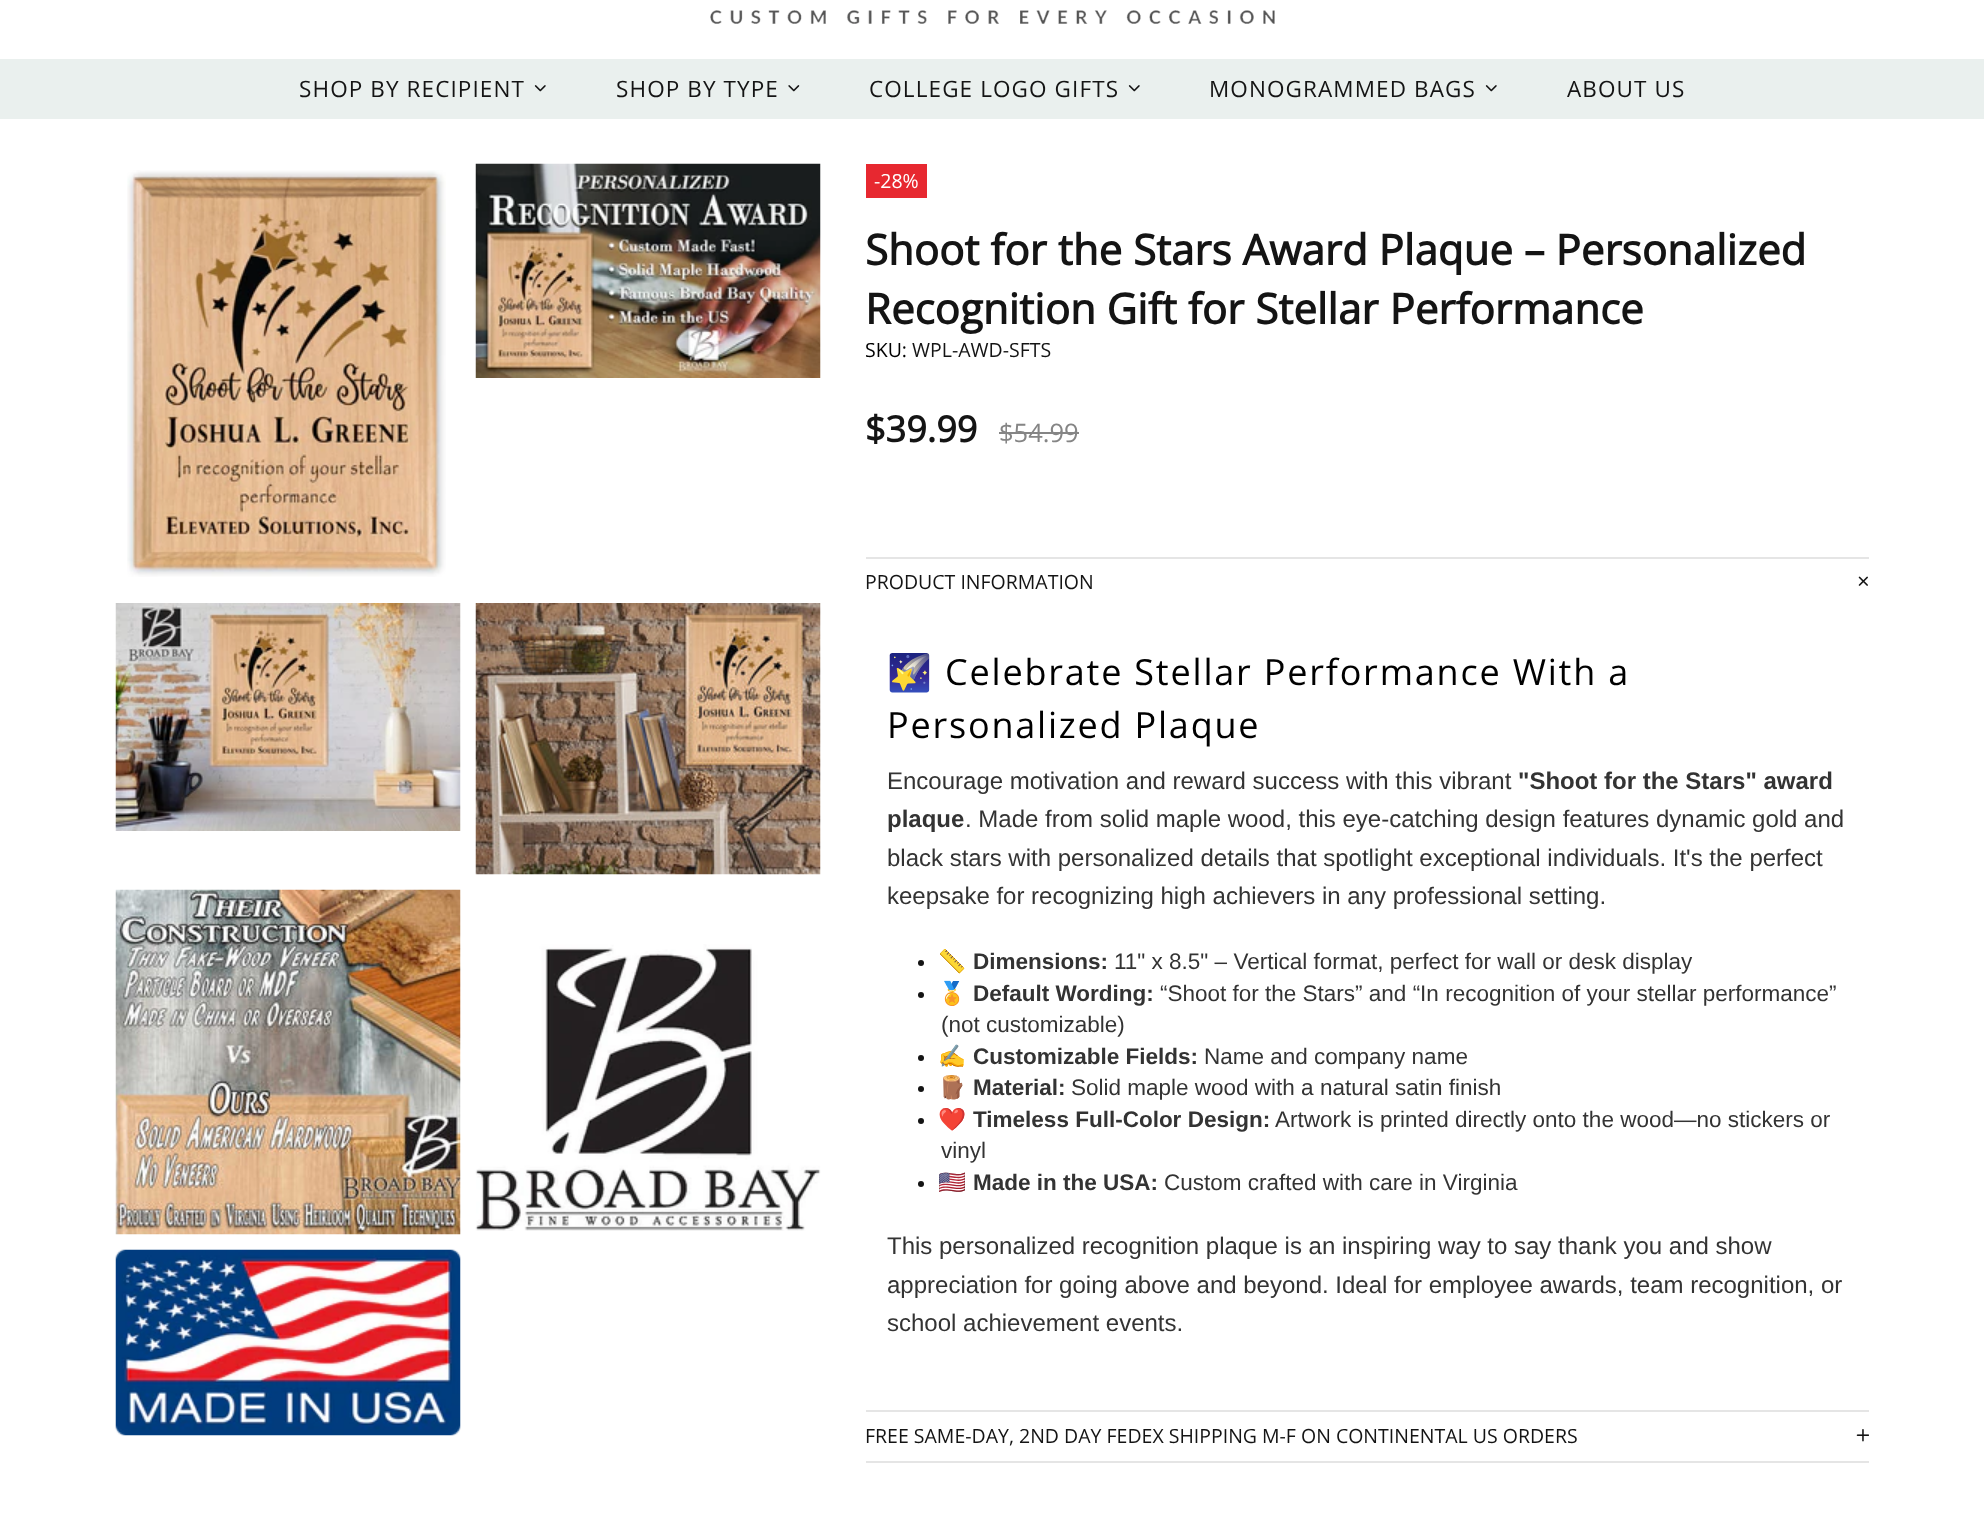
<?xml version="1.0" encoding="UTF-8"?>
<svg xmlns="http://www.w3.org/2000/svg" width="1984" height="1531">
    <rect width="100%" height="100%" fill="#FFFFFF"/>
    <image x="710" y="10" width="565" height="14" href="img_01.png"/>
    <rect x="0" y="59" width="1984" height="60" fill="#EAF0EE"/>
    <text x="299" y="97" font-family="Open Sans" font-size="22.5" letter-spacing="1.1" fill="#141414">SHOP BY RECIPIENT</text>
    <image x="534" y="85" width="12" height="7" href="img_02.png"/>
    <text x="616" y="97" font-family="Open Sans" font-size="22.5" letter-spacing="1.1" fill="#141414">SHOP BY TYPE</text>
    <image x="788" y="85" width="12" height="7" href="img_03.png"/>
    <text x="869" y="97" font-family="Open Sans" font-size="22.5" letter-spacing="1.1" fill="#141414">COLLEGE LOGO GIFTS</text>
    <image x="1128" y="85" width="12" height="7" href="img_02.png"/>
    <text x="1209" y="97" font-family="Open Sans" font-size="22.5" letter-spacing="1.1" fill="#141414">MONOGRAMMED BAGS</text>
    <image x="1485" y="85" width="12" height="7" href="img_02.png"/>
    <text x="1567" y="97" font-family="Open Sans" font-size="22.5" letter-spacing="1.1" fill="#141414">ABOUT US</text>
    <image x="127" y="170" width="319" height="407" href="img_04.png"/>
    <image x="475" y="163" width="346" height="215" href="img_05.png"/>
    <image x="115" y="603" width="346" height="228" href="img_06.png"/>
    <image x="475" y="603" width="346" height="272" href="img_07.png"/>
    <image x="115" y="889" width="346" height="346" href="img_08.png"/>
    <image x="475" y="944" width="346" height="287" href="img_09.png"/>
    <image x="115" y="1249" width="346" height="187" href="img_10.png"/>
    <rect x="866" y="164" width="61" height="34" fill="#E72830"/>
    <text x="874" y="188" font-family="Open Sans" font-size="19.5" fill="#FFFFFF">-28%</text>
    <text font-family="Open Sans" font-size="42" font-weight="700" fill="#141414">
        <tspan x="865" y="265">Shoot for the Stars Award Plaque – Personalized</tspan>
        <tspan x="865" y="324">Recognition Gift for Stellar Performance</tspan>
    </text>
    <text x="865" y="357" font-family="Open Sans" font-size="19.5" fill="#000000">SKU:</text>
    <text x="912" y="357" font-family="Open Sans" font-size="19.5" fill="#141414">WPL-AWD-SFTS</text>
    <text x="865" y="442" font-family="Open Sans" font-size="36" font-weight="700" fill="#141414">$39.99</text>
    <text x="999" y="442" font-family="Open Sans" font-size="25.5" fill="#858585">$54.99</text>
    <rect x="999" y="432" width="80" height="2" fill="#858585"/>
    <rect x="866" y="557" width="1003" height="2" fill="#E5E5E5"/>
    <rect x="866" y="1461" width="1003" height="2" fill="#E5E5E5"/>
    <text x="865" y="589" font-family="Open Sans" font-size="19.5" fill="#141414">PRODUCT INFORMATION</text>
    <image x="1858" y="576" width="10" height="10" href="img_11.png"/>
    <text x="887" y="685" font-family="Noto Color Emoji" font-size="36" letter-spacing="1.8" fill="#000000">🌠</text>
    <text x="945" y="685" font-family="Open Sans" font-size="36" letter-spacing="1.8" fill="#000000">Celebrate Stellar Performance With a</text>
    <text x="887" y="738" font-family="Open Sans" font-size="36" letter-spacing="1.8" fill="#000000">Personalized Plaque</text>
    <text x="887" y="789" font-family="Liberation Sans" font-size="24" fill="#333333">Encourage motivation and reward success with this vibrant</text>
    <text x="1518" y="789" font-family="Liberation Sans" font-size="24" font-weight="700" fill="#333333">"Shoot for the Stars" award</text>
    <text x="887" y="827" font-family="Liberation Sans" font-size="24" font-weight="700" fill="#333333">plaque</text>
    <text x="965" y="827" font-family="Liberation Sans" font-size="24" fill="#333333">. Made from solid maple wood, this eye-catching design features dynamic gold and</text>
    <text font-family="Liberation Sans" font-size="24" fill="#333333">
        <tspan x="887" y="866">black stars with personalized details that spotlight exceptional individuals. It's the perfect</tspan>
        <tspan x="887" y="904">keepsake for recognizing high achievers in any professional setting.</tspan>
    </text>
    <circle cx="921" cy="963" r="3" fill="#141414"/>
    <text x="938" y="969" font-family="Noto Color Emoji" font-size="22.5" fill="#333333">📏</text>
    <text x="973" y="969" font-family="Liberation Sans" font-size="22.5" font-weight="700" fill="#333333">Dimensions:</text>
    <text x="1114" y="969" font-family="Liberation Sans" font-size="22.5" fill="#333333">11" x 8.5" – Vertical format, perfect for wall or desk display</text>
    <circle cx="921" cy="995" r="3" fill="#141414"/>
    <text x="938" y="1001" font-family="Noto Color Emoji" font-size="22.5" fill="#333333">🏅</text>
    <text x="973" y="1001" font-family="Liberation Sans" font-size="22.5" font-weight="700" fill="#333333">Default Wording:</text>
    <text x="1160" y="1001" font-family="Liberation Sans" font-size="22.5" fill="#333333">“Shoot for the Stars” and “In recognition of your stellar performance”</text>
    <text x="941" y="1032" font-family="Liberation Sans" font-size="22.5" fill="#333333">(not customizable)</text>
    <circle cx="921" cy="1058" r="3" fill="#141414"/>
    <text x="938" y="1064" font-family="Noto Color Emoji" font-size="22.5" fill="#333333">✍️</text>
    <text x="973" y="1064" font-family="Liberation Sans" font-size="22.5" font-weight="700" fill="#333333">Customizable Fields:</text>
    <text x="1204" y="1064" font-family="Liberation Sans" font-size="22.5" fill="#333333">Name and company name</text>
    <circle cx="921" cy="1089" r="3" fill="#141414"/>
    <text x="938" y="1095" font-family="Noto Color Emoji" font-size="22.5" fill="#333333">🪵</text>
    <text x="973" y="1095" font-family="Liberation Sans" font-size="22.5" font-weight="700" fill="#333333">Material:</text>
    <text x="1071" y="1095" font-family="Liberation Sans" font-size="22.5" fill="#333333">Solid maple wood with a natural satin finish</text>
    <circle cx="921" cy="1121" r="3" fill="#141414"/>
    <text x="938" y="1127" font-family="Noto Color Emoji" font-size="22.5" fill="#333333">❤️</text>
    <text x="973" y="1127" font-family="Liberation Sans" font-size="22.5" font-weight="700" fill="#333333">Timeless Full-Color Design:</text>
    <text x="1275" y="1127" font-family="Liberation Sans" font-size="22.5" fill="#333333">Artwork is printed directly onto the wood—no stickers or</text>
    <text x="941" y="1158" font-family="Liberation Sans" font-size="22.5" fill="#333333">vinyl</text>
    <circle cx="921" cy="1184" r="3" fill="#141414"/>
    <text x="938" y="1190" font-family="Noto Color Emoji" font-size="22.5" fill="#333333">🇺🇸</text>
    <text x="973" y="1190" font-family="Liberation Sans" font-size="22.5" font-weight="700" fill="#333333">Made in the USA:</text>
    <text x="1164" y="1190" font-family="Liberation Sans" font-size="22.5" fill="#333333">Custom crafted with care in Virginia</text>
    <text font-family="Liberation Sans" font-size="24" fill="#333333">
        <tspan x="887" y="1254">This personalized recognition plaque is an inspiring way to say thank you and show</tspan>
        <tspan x="887" y="1293">appreciation for going above and beyond. Ideal for employee awards, team recognition, or</tspan>
        <tspan x="887" y="1331">school achievement events.</tspan>
    </text>
    <rect x="866" y="1410" width="1003" height="2" fill="#E5E5E5"/>
    <text x="865" y="1443" font-family="Open Sans" font-size="19.5" fill="#141414">FREE SAME-DAY, 2ND DAY FEDEX SHIPPING M-F ON CONTINENTAL US ORDERS</text>
    <image x="1856" y="1429" width="13" height="13" href="img_12.png"/>
</svg>
